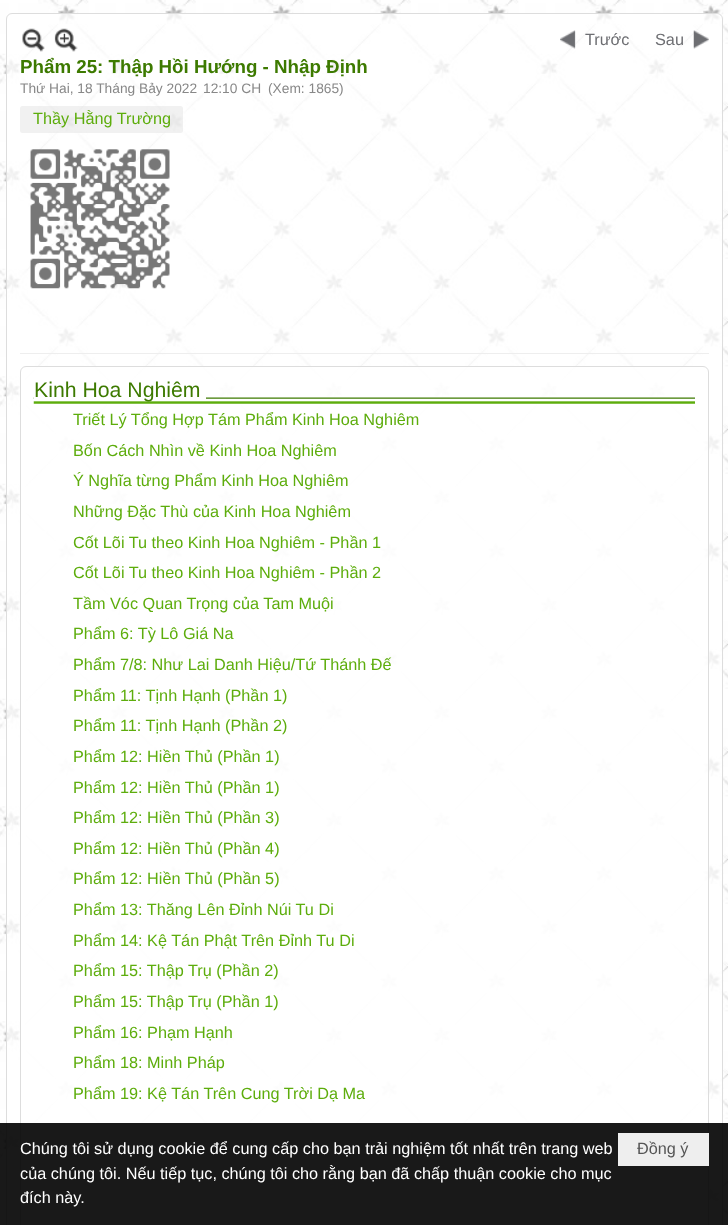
<?xml version="1.0" encoding="UTF-8"?>
<svg xmlns="http://www.w3.org/2000/svg" width="728" height="1225">
    <rect width="100%" height="100%" fill="#FFFFFF"/>
    <image x="0" y="0" width="728" height="1225" href="img_01.png"/>
    <rect x="6.5" y="13.5" width="716" height="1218" rx="5.5" fill="none" stroke="#DDDDDD"/>
    <rect x="20" y="353" width="689" height="1" fill="#EEEEEE"/>
    <image x="22" y="28" width="23" height="24" href="img_02.png"/>
    <image x="54" y="28" width="24" height="24" href="img_03.png"/>
    <image x="560" y="30" width="16" height="19" href="img_04.png"/>
    <text x="585" y="45" font-family="Liberation Sans" font-size="16.25" fill="#6D6E72">Trước</text>
    <image x="693" y="30" width="16" height="19" href="img_05.png"/>
    <text x="655" y="45" font-family="Liberation Sans" font-size="16.25" fill="#6D6E72">Sau</text>
    <text x="20" y="73" font-family="Liberation Sans" font-size="18.75" font-weight="700" fill="#3D7A00">Phẩm 25: Thập Hồi Hướng - Nhập Định</text>
    <text x="20" y="93" font-family="Liberation Sans" font-size="13.75" fill="#888888">Thứ Hai, 18 Tháng Bảy 2022</text>
    <text x="203" y="93" font-family="Liberation Sans" font-size="13.75" fill="#888888">12:10 CH</text>
    <text x="268" y="93" font-family="Liberation Sans" font-size="13.75" fill="#888888">(Xem: 1865)</text>
    <rect x="20" y="106" width="163" height="27" rx="2.5" fill="#DDDDDD" fill-opacity="0.4"/>
    <text x="33" y="124" font-family="Liberation Sans" font-size="16.25" fill="#5DAD0C">Thầy Hằng Trường</text>
    <image x="30" y="149" width="140" height="140" href="img_06.png"/>
    <rect x="20.5" y="366.5" width="688" height="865" rx="5.5" fill="#FFFFFF" fill-opacity="0.8" stroke="#DDDDDD"/>
    <image x="33" y="397" width="662" height="7" href="img_07.png"/>
    <rect x="34" y="384" width="172" height="15" fill="#FFFFFF"/>
    <text x="34" y="397" font-family="Liberation Sans" font-size="21.25" fill="#3D7A00">Kinh Hoa Nghiêm</text>
    <text font-family="Liberation Sans" font-size="16.25" fill="#5DAD0C">
        <tspan x="73" y="425">Triết Lý Tổng Hợp Tám Phẩm Kinh Hoa Nghiêm</tspan>
        <tspan x="73" y="456">Bốn Cách Nhìn về Kinh Hoa Nghiêm</tspan>
        <tspan x="73" y="486">Ý Nghĩa từng Phẩm Kinh Hoa Nghiêm</tspan>
        <tspan x="73" y="517">Những Đặc Thù của Kinh Hoa Nghiêm</tspan>
        <tspan x="73" y="548">Cốt Lõi Tu theo Kinh Hoa Nghiêm - Phần 1</tspan>
        <tspan x="73" y="578">Cốt Lõi Tu theo Kinh Hoa Nghiêm - Phần 2</tspan>
        <tspan x="73" y="609">Tầm Vóc Quan Trọng của Tam Muội</tspan>
        <tspan x="73" y="639">Phẩm 6: Tỳ Lô Giá Na</tspan>
        <tspan x="73" y="670">Phẩm 7/8: Như Lai Danh Hiệu/Tứ Thánh Đế</tspan>
        <tspan x="73" y="701">Phẩm 11: Tịnh Hạnh (Phần 1)</tspan>
        <tspan x="73" y="731">Phẩm 11: Tịnh Hạnh (Phần 2)</tspan>
        <tspan x="73" y="762">Phẩm 12: Hiền Thủ (Phần 1)</tspan>
        <tspan x="73" y="793">Phẩm 12: Hiền Thủ (Phần 1)</tspan>
        <tspan x="73" y="823">Phẩm 12: Hiền Thủ (Phần 3)</tspan>
        <tspan x="73" y="854">Phẩm 12: Hiền Thủ (Phần 4)</tspan>
        <tspan x="73" y="884">Phẩm 12: Hiền Thủ (Phần 5)</tspan>
        <tspan x="73" y="915">Phẩm 13: Thăng Lên Đỉnh Núi Tu Di</tspan>
        <tspan x="73" y="946">Phẩm 14: Kệ Tán Phật Trên Đỉnh Tu Di</tspan>
        <tspan x="73" y="976">Phẩm 15: Thập Trụ (Phần 2)</tspan>
        <tspan x="73" y="1007">Phẩm 15: Thập Trụ (Phần 1)</tspan>
        <tspan x="73" y="1038">Phẩm 16: Phạm Hạnh</tspan>
        <tspan x="73" y="1068">Phẩm 18: Minh Pháp</tspan>
        <tspan x="73" y="1099">Phẩm 19: Kệ Tán Trên Cung Trời Dạ Ma</tspan>
    </text>
    <rect x="0" y="1123" width="728" height="102" fill="#000000" fill-opacity="0.9"/>
    <text font-family="Liberation Sans" font-size="16.25" fill="#FFFFFF">
        <tspan x="20" y="1154">Chúng tôi sử dụng cookie để cung cấp cho bạn trải nghiệm tốt nhất trên trang web</tspan>
        <tspan x="20" y="1179">của chúng tôi. Nếu tiếp tục, chúng tôi cho rằng bạn đã chấp thuận cookie cho mục</tspan>
        <tspan x="20" y="1203">đích này.</tspan>
    </text>
    <rect x="618" y="1133" width="91" height="33" fill="#EEEEEE"/>
    <text x="637" y="1154" font-family="Liberation Sans" font-size="16.25" fill="#555555">Đồng ý</text>
</svg>
